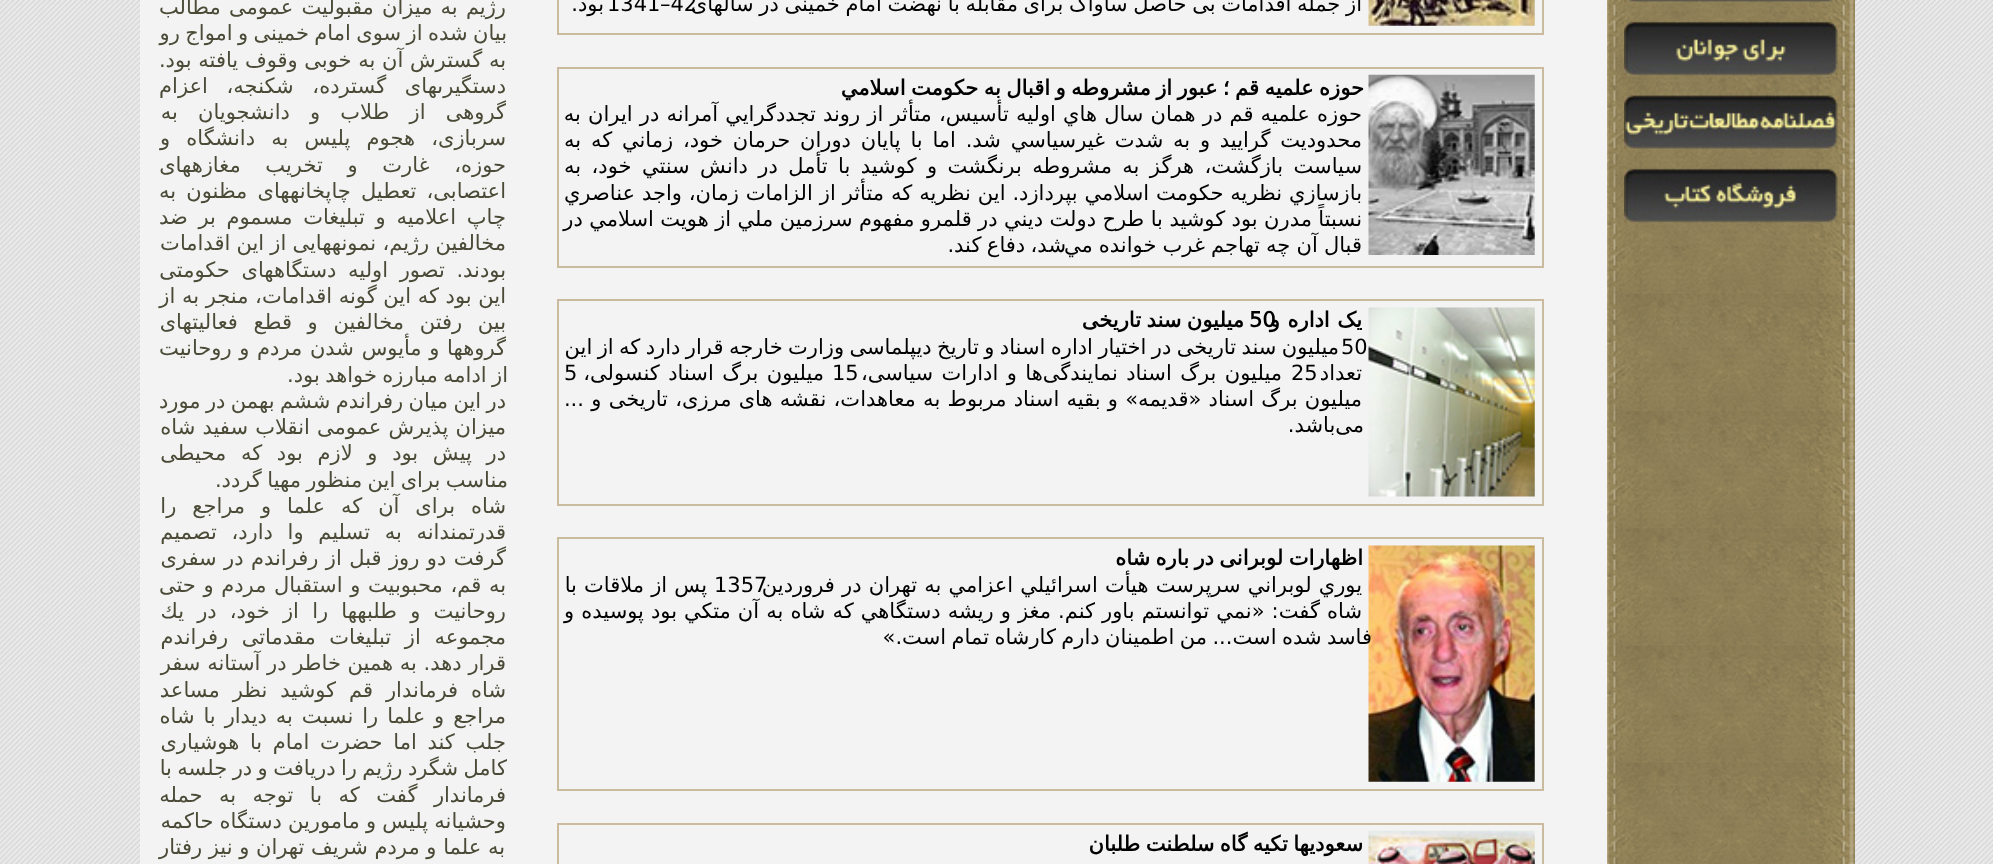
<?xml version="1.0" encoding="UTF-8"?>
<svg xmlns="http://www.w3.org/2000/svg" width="1993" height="864">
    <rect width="100%" height="100%" fill="#FFFFFF"/>
    <image x="0" y="0" width="1993" height="864" href="img_01.png"/>
    <image x="1607" y="0" width="248" height="864" href="img_02.png"/>
    <image x="1624" y="0" width="214" height="3" href="img_03.png"/>
    <image x="1624" y="20" width="214" height="57" href="img_04.png"/>
    <image x="1624" y="94" width="214" height="56" href="img_05.png"/>
    <image x="1624" y="167" width="214" height="57" href="img_06.png"/>
    <rect x="140" y="0" width="1467" height="864" fill="#F3F3F3"/>
    <rect x="1542" y="0" width="2" height="35" fill="#CABB9F"/>
    <rect x="557" y="33" width="987" height="2" fill="#CABB9F"/>
    <rect x="557" y="0" width="2" height="35" fill="#CABB9F"/>
    <image x="1368" y="0" width="167" height="26" href="img_07.png"/>
    <text x="660" y="11" font-family="DejaVu Sans" font-size="21" fill="#000000">–42</text>
    <text x="1362" y="11" word-spacing="-1" font-family="DejaVu Sans" font-size="21" direction="rtl" fill="#000000">از جمله اقدامات بی حاصل ساواک برای مقابله با نهضت امام خمینی در سالهای</text>
    <text x="607" y="11" font-family="DejaVu Sans" font-size="21" fill="#000000">1341</text>
    <text x="604" y="11" font-family="DejaVu Sans" font-size="21" direction="rtl" fill="#000000">بود.</text>
    <rect x="557" y="67" width="987" height="2" fill="#CABB9F"/>
    <rect x="1542" y="67" width="2" height="201" fill="#CABB9F"/>
    <rect x="557" y="266" width="987" height="2" fill="#CABB9F"/>
    <rect x="557" y="67" width="2" height="201" fill="#CABB9F"/>
    <image x="1368" y="74" width="167" height="181" href="img_08.png"/>
    <text x="1364" y="95" word-spacing="-1.25" font-family="DejaVu Sans" font-size="21" font-weight="700" direction="rtl" fill="#000000">حوزه علميه قم ؛ عبور از مشروطه و اقبال به حکومت اسلامي</text>
    <text x="1362" y="121" word-spacing="0.5" font-family="DejaVu Sans" font-size="21" direction="rtl" fill="#000000">حوزه علميه قم در همان سال</text>
    <text x="1097" y="121" word-spacing="0.5" font-family="DejaVu Sans" font-size="21" direction="rtl" fill="#000000">هاي اوليه تأسيس، متأثر از روند تجددگرايي آمرانه در ايران به</text>
    <text font-family="DejaVu Sans" font-size="21" direction="rtl" fill="#000000">
        <tspan x="1362" y="147" word-spacing="3.1">محدوديت گراييد و به شدت غيرسياسي شد. اما با پايان دوران حرمان خود، زماني که به</tspan>
        <tspan x="1362" y="173" word-spacing="3.75">سياست بازگشت، هرگز به مشروطه برنگشت و کوشيد با تأمل در دانش سنتي خود، به</tspan>
        <tspan x="1362" y="200" word-spacing="0.25">بازسازي نظريه حکومت اسلامي بپردازد. اين نظريه که متأثر از الزامات زمان، واجد عناصري</tspan>
        <tspan x="1362" y="226" word-spacing="-0.25">نسبتاً مدرن بود کوشيد با طرح دولت ديني در قلمرو مفهوم سرزمين ملي از هويت اسلامي در</tspan>
        <tspan x="1362" y="252" word-spacing="-0.5">قبال آن چه تهاجم غرب خوانده مي</tspan>
    </text>
    <text x="1066" y="252" word-spacing="-1.25" font-family="DejaVu Sans" font-size="21" direction="rtl" fill="#000000">شد، دفاع کند.</text>
    <rect x="557" y="299" width="987" height="2" fill="#CABB9F"/>
    <rect x="1542" y="299" width="2" height="207" fill="#CABB9F"/>
    <rect x="557" y="504" width="987" height="2" fill="#CABB9F"/>
    <rect x="557" y="299" width="2" height="207" fill="#CABB9F"/>
    <image x="1368" y="307" width="167" height="190" href="img_09.png"/>
    <text x="1249" y="327" font-family="DejaVu Sans" font-size="21" font-weight="700" fill="#000000">50</text>
    <text x="1362" y="327" word-spacing="1" font-family="DejaVu Sans" font-size="21" font-weight="700" direction="rtl" fill="#000000">یک اداره و</text>
    <text x="1244" y="327" word-spacing="-1.25" font-family="DejaVu Sans" font-size="21" font-weight="700" direction="rtl" fill="#000000">میلیون سند تاریخی</text>
    <text x="1339" y="354" word-spacing="-1.25" font-family="DejaVu Sans" font-size="21" direction="rtl" fill="#000000">میلیون سند تاریخی در اختیار اداره اسناد و تاریخ دیپلماسی وزارت خارجه قرار دارد که از این</text>
    <text x="1341" y="354" font-family="DejaVu Sans" font-size="21" fill="#000000">50</text>
    <text x="1362" y="380" font-family="DejaVu Sans" font-size="21" direction="rtl" fill="#000000">تعداد</text>
    <text x="1291" y="380" font-family="DejaVu Sans" font-size="21" fill="#000000">25</text>
    <text x="1282" y="380" word-spacing="1.75" font-family="DejaVu Sans" font-size="21" direction="rtl" fill="#000000">میلیون برگ اسناد نمایندگی‌ها و ادارات سیاسی،</text>
    <text x="832" y="380" font-family="DejaVu Sans" font-size="21" fill="#000000">15</text>
    <text x="824" y="380" word-spacing="1.75" font-family="DejaVu Sans" font-size="21" direction="rtl" fill="#000000">میلیون برگ اسناد کنسولی،</text>
    <text x="564" y="380" font-family="DejaVu Sans" font-size="21" fill="#000000">5</text>
    <text x="1362" y="406" word-spacing="0.6" font-family="DejaVu Sans" font-size="21" direction="rtl" fill="#000000">میلیون برگ اسناد «قدیمه» و بقیه اسناد مربوط به معاهدات، نقشه های مرزی، تاریخی و ...</text>
    <text x="1364" y="432" font-family="DejaVu Sans" font-size="21" direction="rtl" fill="#000000">می‌باشد.</text>
    <rect x="557" y="537" width="987" height="2" fill="#CABB9F"/>
    <rect x="1542" y="537" width="2" height="254" fill="#CABB9F"/>
    <rect x="557" y="789" width="987" height="2" fill="#CABB9F"/>
    <rect x="557" y="537" width="2" height="254" fill="#CABB9F"/>
    <image x="1368" y="545" width="167" height="237" href="img_10.png"/>
    <text x="1363" y="565" word-spacing="-1.25" font-family="DejaVu Sans" font-size="21" font-weight="700" direction="rtl" fill="#000000">اظهارات لوبرانی در باره شاه</text>
    <text x="714" y="592" font-family="DejaVu Sans" font-size="21" fill="#000000">1357</text>
    <text x="1362" y="592" word-spacing="0.5" font-family="DejaVu Sans" font-size="21" direction="rtl" fill="#000000">يوري لوبراني سرپرست هيأت اسرائيلي اعزامي به تهران در فروردین</text>
    <text x="707" y="592" word-spacing="0.5" font-family="DejaVu Sans" font-size="21" direction="rtl" fill="#000000">پس از ملاقات با</text>
    <text x="1362" y="618" word-spacing="0.4" font-family="DejaVu Sans" font-size="21" direction="rtl" fill="#000000">شاه گفت: «نمي توانستم باور كنم. مغز و ريشه دستگاهي كه شاه به آن متكي بود پوسيده و</text>
    <text x="1372" y="644" word-spacing="-1.25" font-family="DejaVu Sans" font-size="21" direction="rtl" fill="#000000">فاسد شده است... من اطمینان دارم كارشاه تمام است.»</text>
    <rect x="557" y="823" width="987" height="2" fill="#CABB9F"/>
    <rect x="1542" y="823" width="2" height="41" fill="#CABB9F"/>
    <rect x="557" y="823" width="2" height="41" fill="#CABB9F"/>
    <image x="1368" y="830" width="167" height="34" href="img_11.png"/>
    <text x="1363" y="851" word-spacing="-1.25" font-family="DejaVu Sans" font-size="21" font-weight="700" direction="rtl" fill="#000000">سعودیها تکیه گاه سلطنت طلبان</text>
    <text x="506" y="14" word-spacing="1.5" font-family="DejaVu Sans" font-size="21" direction="rtl" fill="#4A4A37">رژيم به ميزان مقبوليت عمومى مطالب</text>
    <text x="507" y="40" word-spacing="-1.25" font-family="DejaVu Sans" font-size="21" direction="rtl" fill="#4A4A37">بيان شده از سوى امام خمينى و امواج رو</text>
    <text font-family="DejaVu Sans" font-size="21" direction="rtl" fill="#4A4A37">
        <tspan x="506" y="67">به گسترش آن به خوبى وقوف يافته بود.</tspan>
        <tspan x="506" y="93" word-spacing="12">دستگيرىهاى گسترده، شكنجه، اعزام</tspan>
        <tspan x="506" y="119" word-spacing="13.5">گروهى از طلاب و دانشجويان به</tspan>
        <tspan x="506" y="145" word-spacing="9.5">سربازى، هجوم پليس به دانشگاه و</tspan>
        <tspan x="506" y="172" word-spacing="18">حوزه، غارت و تخريب مغازههاى</tspan>
        <tspan x="506" y="198" word-spacing="3.5">اعتصابى، تعطيل چاپخانههاى مظنون به</tspan>
        <tspan x="506" y="224" word-spacing="4">چاپ اعلاميه و تبليغات مسموم بر ضد</tspan>
        <tspan x="506" y="250" word-spacing="-0.5">مخالفين رژيم، نمونههايى از اين اقدامات</tspan>
        <tspan x="506" y="277" word-spacing="5">بودند. تصور اوليه دستگاههاى حكومتى</tspan>
        <tspan x="506" y="303">اين بود كه اين گونه اقدامات، منجر به از</tspan>
        <tspan x="506" y="329" word-spacing="9">بين رفتن مخالفين و قطع فعاليتهاى</tspan>
        <tspan x="506" y="355" word-spacing="1">گروهها و مأيوس شدن مردم و روحانيت</tspan>
    </text>
    <text x="508" y="382" word-spacing="-1.25" font-family="DejaVu Sans" font-size="21" direction="rtl" fill="#4A4A37">از ادامه مبارزه خواهد بود.</text>
    <text font-family="DejaVu Sans" font-size="21" direction="rtl" fill="#4A4A37">
        <tspan x="506" y="408" word-spacing="-1.25">در اين ميان رفراندم ششم بهمن در مورد</tspan>
        <tspan x="506" y="434" word-spacing="0.5">ميزان پذيرش عمومى انقلاب سفيد شاه</tspan>
        <tspan x="506" y="460" word-spacing="8">در پيش بود و لازم بود كه محيطى</tspan>
    </text>
    <text x="508" y="487" word-spacing="-1.25" font-family="DejaVu Sans" font-size="21" direction="rtl" fill="#4A4A37">مناسب براى اين منظور مهيا گردد.</text>
    <text font-family="DejaVu Sans" font-size="21" direction="rtl" fill="#4A4A37">
        <tspan x="506" y="513" word-spacing="9.25">شاه براى آن كه علما و مراجع را</tspan>
        <tspan x="506" y="539" word-spacing="8">قدرتمندانه به تسليم وا دارد، تصميم</tspan>
        <tspan x="506" y="565" word-spacing="0.75">گرفت دو روز قبل از رفراندم در سفرى</tspan>
        <tspan x="506" y="592" word-spacing="1">به قم، محبوبيت و استقبال مردم و حتى</tspan>
        <tspan x="506" y="618" word-spacing="6.5">روحانيت و طلبهها را از خود، در يك</tspan>
        <tspan x="506" y="644" word-spacing="7">مجموعه از تبليغات مقدماتى رفراندم</tspan>
        <tspan x="506" y="670">قرار دهد. به همين خاطر در آستانه سفر</tspan>
        <tspan x="506" y="697" word-spacing="6.25">شاه فرماندار قم كوشيد نظر مساعد</tspan>
        <tspan x="506" y="723" word-spacing="2.25">مراجع و علما را نسبت به ديدار با شاه</tspan>
        <tspan x="506" y="749" word-spacing="4">جلب كند اما حضرت امام با هوشيارى</tspan>
    </text>
    <text x="507" y="775" word-spacing="-1.25" font-family="DejaVu Sans" font-size="21" direction="rtl" fill="#4A4A37">كامل شگرد رژيم را دريافت و در جلسه با</text>
    <text font-family="DejaVu Sans" font-size="21" direction="rtl" fill="#4A4A37">
        <tspan x="506" y="802" word-spacing="9.75">فرماندار گفت كه با توجه به حمله</tspan>
        <tspan x="506" y="828" word-spacing="-0.5">وحشيانه پليس و مامورين دستگاه حاكمه</tspan>
    </text>
    <text x="505" y="854" font-family="DejaVu Sans" font-size="21" direction="rtl" fill="#4A4A37">به علما و مردم شريف تهران و نيز رفتار</text>
</svg>
